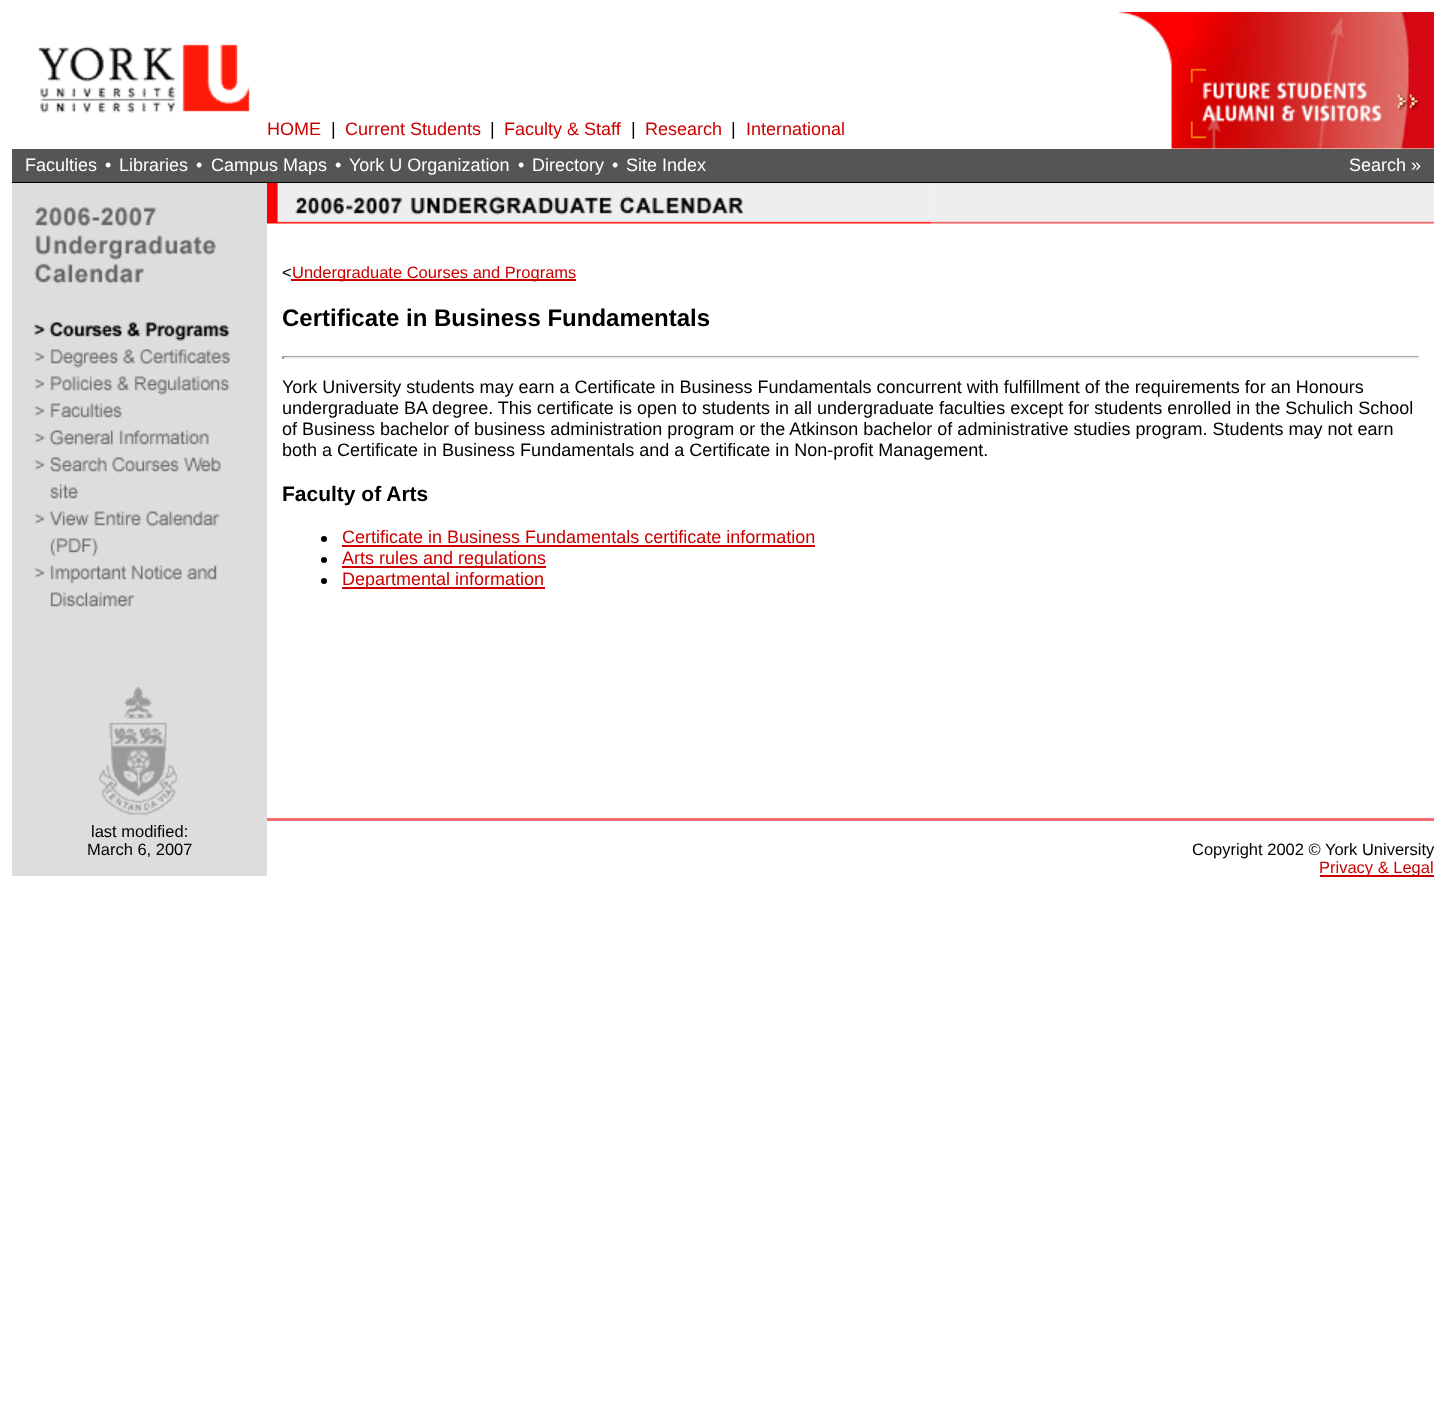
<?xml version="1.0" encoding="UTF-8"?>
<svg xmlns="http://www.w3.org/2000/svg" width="1445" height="1408">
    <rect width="100%" height="100%" fill="#FFFFFF"/>
    <image x="38" y="44" width="212" height="69" href="img_01.png"/>
    <image x="1119" y="12" width="315" height="137" href="img_02.png"/>
    <text x="267" y="135" font-family="Liberation Sans" font-size="18" fill="#CC0000">HOME</text>
    <text x="331" y="135" font-family="Liberation Sans" font-size="18" fill="#000000">|</text>
    <text x="345" y="135" font-family="Liberation Sans" font-size="18" fill="#CC0000">Current Students</text>
    <text x="490" y="135" font-family="Liberation Sans" font-size="18" fill="#000000">|</text>
    <text x="504" y="135" font-family="Liberation Sans" font-size="18" fill="#CC0000">Faculty &amp; Staff</text>
    <text x="631" y="135" font-family="Liberation Sans" font-size="18" fill="#000000">|</text>
    <text x="645" y="135" font-family="Liberation Sans" font-size="18" fill="#CC0000">Research</text>
    <text x="731" y="135" font-family="Liberation Sans" font-size="18" fill="#000000">|</text>
    <text x="746" y="135" font-family="Liberation Sans" font-size="18" fill="#CC0000">International</text>
    <rect x="12" y="149" width="1422" height="33" fill="#555555"/>
    <text x="25" y="171" font-family="Liberation Sans" font-size="18" fill="#FFFFFF">Faculties</text>
    <text x="105" y="171" font-family="Liberation Sans" font-size="18" fill="#FFFFFF">•</text>
    <text x="119" y="171" font-family="Liberation Sans" font-size="18" fill="#FFFFFF">Libraries</text>
    <text x="196" y="171" font-family="Liberation Sans" font-size="18" fill="#FFFFFF">•</text>
    <text x="211" y="171" font-family="Liberation Sans" font-size="18" fill="#FFFFFF">Campus Maps</text>
    <text x="335" y="171" font-family="Liberation Sans" font-size="18" fill="#FFFFFF">•</text>
    <text x="349" y="171" font-family="Liberation Sans" font-size="18" fill="#FFFFFF">York U Organization</text>
    <text x="518" y="171" font-family="Liberation Sans" font-size="18" fill="#FFFFFF">•</text>
    <text x="532" y="171" font-family="Liberation Sans" font-size="18" fill="#FFFFFF">Directory</text>
    <text x="612" y="171" font-family="Liberation Sans" font-size="18" fill="#FFFFFF">•</text>
    <text x="626" y="171" font-family="Liberation Sans" font-size="18" fill="#FFFFFF">Site Index</text>
    <text x="1349" y="171" font-family="Liberation Sans" font-size="18" fill="#FFFFFF">Search »</text>
    <rect x="12" y="182" width="1422" height="2" fill="#000000"/>
    <rect x="12" y="183" width="255" height="693" fill="#DDDDDD"/>
    <image x="34" y="207" width="183" height="77" href="img_03.png"/>
    <image x="34" y="322" width="196" height="19" href="img_04.png"/>
    <image x="34" y="349" width="196" height="19" href="img_05.png"/>
    <image x="34" y="376" width="196" height="19" href="img_06.png"/>
    <image x="34" y="403" width="88" height="15" href="img_07.png"/>
    <image x="34" y="430" width="175" height="16" href="img_08.png"/>
    <image x="34" y="457" width="187" height="42" href="img_09.png"/>
    <image x="34" y="511" width="186" height="46" href="img_10.png"/>
    <image x="34" y="565" width="183" height="42" href="img_11.png"/>
    <image x="931" y="183" width="1" height="41" href="img_12.png"/>
    <image x="931" y="183" width="503" height="41" href="img_14.png"/>
    <image x="267" y="183" width="665" height="41" href="img_13.png"/>
    <text x="282" y="278" font-family="Liberation Sans" font-size="16.5" fill="#000000">&lt;</text>
    <rect x="291" y="279" width="285" height="2" fill="#CC0000"/>
    <text x="292" y="278" font-family="Liberation Sans" font-size="16.5" fill="#CC0000">Undergraduate Courses and Programs</text>
    <text x="282" y="326" font-family="Liberation Sans" font-size="24" font-weight="700" fill="#000000">Certificate in Business Fundamentals</text>
    <rect x="282" y="356" width="1137" height="1" fill="#9F9F9F"/>
    <rect x="1418" y="356" width="2" height="3" fill="#EEEEEE"/>
    <rect x="282" y="357" width="1137" height="2" fill="#EEEEEE"/>
    <rect x="282" y="356" width="2" height="3" fill="#9F9F9F"/>
    <text font-family="Liberation Sans" font-size="18" fill="#000000">
        <tspan x="282" y="393">York University students may earn a Certificate in Business Fundamentals concurrent with fulfillment of the requirements for an Honours</tspan>
        <tspan x="282" y="414">undergraduate BA degree. This certificate is open to students in all undergraduate faculties except for students enrolled in the Schulich School</tspan>
        <tspan x="282" y="435">of Business bachelor of business administration program or the Atkinson bachelor of administrative studies program. Students may not earn</tspan>
        <tspan x="282" y="456">both a Certificate in Business Fundamentals and a Certificate in Non-profit Management.</tspan>
    </text>
    <text x="282" y="501" font-family="Liberation Sans" font-size="21" font-weight="700" fill="#000000">Faculty of Arts</text>
    <circle cx="324" cy="539" r="3" fill="#000000"/>
    <text x="342" y="543" font-family="Liberation Sans" font-size="18" fill="#CC0000">Certificate in Business Fundamentals certificate information</text>
    <rect x="342" y="545" width="473" height="2" fill="#CC0000"/>
    <circle cx="324" cy="560" r="3" fill="#000000"/>
    <rect x="342" y="566" width="204" height="2" fill="#CC0000"/>
    <text x="342" y="564" font-family="Liberation Sans" font-size="18" fill="#CC0000">Arts rules and regulations</text>
    <circle cx="324" cy="581" r="3" fill="#000000"/>
    <rect x="342" y="587" width="203" height="2" fill="#CC0000"/>
    <text x="342" y="585" font-family="Liberation Sans" font-size="18" fill="#CC0000">Departmental information</text>
    <image x="98" y="687" width="80" height="128" href="img_15.png"/>
    <text x="91" y="837" font-family="Liberation Sans" font-size="16.5" fill="#000000">last modified:</text>
    <text x="87" y="855" font-family="Liberation Sans" font-size="16.5" fill="#000000">March 6, 2007</text>
    <rect x="267" y="818" width="1167" height="3" fill="#F26B6F"/>
    <text x="1192" y="855" font-family="Liberation Sans" font-size="16.5" fill="#000000">Copyright 2002 © York University</text>
    <rect x="1320" y="875" width="114" height="2" fill="#CC0000"/>
    <text x="1319" y="873" font-family="Liberation Sans" font-size="16.5" fill="#CC0000">Privacy &amp; Legal</text>
</svg>
